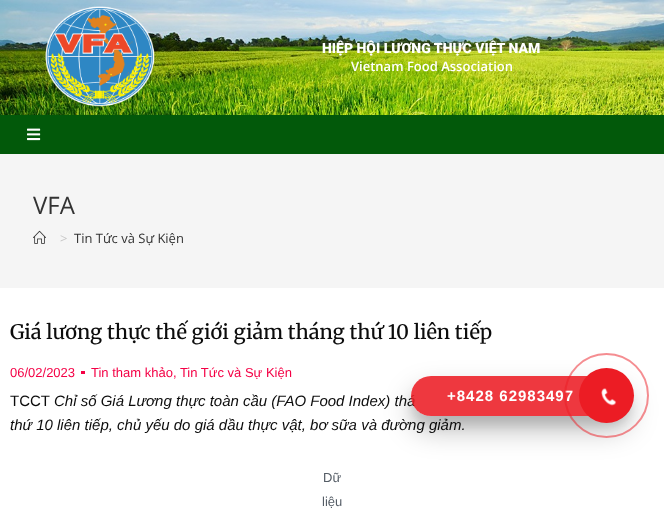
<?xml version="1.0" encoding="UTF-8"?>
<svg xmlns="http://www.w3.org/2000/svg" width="664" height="523">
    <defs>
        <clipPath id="clip1"><path d="M 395 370 H 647 V 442 H 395 Z M 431 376 H 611 C 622 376 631 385 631 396 C 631 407 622 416 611 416 H 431 C 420 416 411 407 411 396 C 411 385 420 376 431 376 Z" clip-rule="evenodd"/></clipPath>
        <filter id="blur1" x="-50%" y="-200%" width="200%" height="500%"><feGaussianBlur stdDeviation="5"/></filter>
        <clipPath id="clip2"><path d="M 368 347 H 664 V 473 H 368 Z M 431 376 H 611 C 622 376 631 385 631 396 C 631 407 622 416 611 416 H 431 C 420 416 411 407 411 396 C 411 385 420 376 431 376 Z" clip-rule="evenodd"/></clipPath>
        <filter id="blur2" x="-50%" y="-200%" width="200%" height="500%"><feGaussianBlur stdDeviation="14"/></filter>
    </defs>
    <rect width="100%" height="100%" fill="#FFFFFF"/>
    <image x="0" y="0" width="664" height="115" href="img_01.png"/>
    <image x="45" y="6" width="110" height="101" href="img_02.png"/>
    <text x="322" y="53" font-family="Roboto" font-size="14" font-weight="900" fill="#FFFFFF">HIỆP HỘI LƯƠNG THỰC VIỆT NAM</text>
    <text x="351" y="71" font-family="Open Sans" font-size="13" font-weight="600" fill="#FFFFFF">Vietnam Food Association</text>
    <rect x="0" y="115" width="664" height="39" fill="#02590A"/>
    <image x="27" y="128" width="14" height="13" href="img_03.png"/>
    <rect x="0" y="154" width="664" height="134" fill="#F5F5F5"/>
    <text x="33" y="214" font-family="Open Sans" font-size="24" fill="#333333">VFA</text>
    <image x="33" y="230" width="13" height="14" href="img_04.png"/>
    <text x="60" y="243" font-family="Open Sans" font-size="13" fill="#C6C6C6">&gt;</text>
    <text x="74" y="243" font-family="Open Sans" font-size="13" fill="#333333">Tin Tức và Sự Kiện</text>
    <text x="10" y="339" font-family="Merriweather" font-size="20" font-weight="500" fill="#0C0C0C">Giá lương thực thế giới giảm tháng thứ 10 liên tiếp</text>
    <text x="10" y="377" font-family="Liberation Sans" font-size="13" fill="#F40045">06/02/2023</text>
    <rect x="81" y="371" width="4" height="3" fill="#F40045"/>
    <text x="91" y="377" font-family="Liberation Sans" font-size="13" fill="#F40045">Tin tham khảo, Tin Tức và Sự Kiện</text>
    <text x="10" y="406" font-family="Liberation Sans" font-size="15" fill="#0C0C0C">TCCT</text>
    <text x="54" y="406" font-family="Liberation Sans" font-size="15" font-style="italic" fill="#0C0C0C">Chỉ số Giá Lương thực toàn cầu (FAO Food Index) thá</text>
    <text x="10" y="430" font-family="Liberation Sans" font-size="15" font-style="italic" fill="#0C0C0C">thứ 10 liên tiếp, chủ yếu do giá dầu thực vật, bơ sữa và đường giảm.</text>
    <text x="323" y="482" font-family="Liberation Sans" font-size="13" fill="#555D66">Dữ</text>
    <text x="322" y="506" font-family="Liberation Sans" font-size="13" fill="#555D66">liệu</text>
    <g clip-path="url(#clip1)">
        <rect x="411" y="386" width="220" height="40" rx="20" fill="#000000" fill-opacity="0.1" filter="url(#blur1)"/>
    </g>
    <g clip-path="url(#clip2)">
        <rect x="411" y="390" width="220" height="40" rx="20" fill="#000000" fill-opacity="0.25" filter="url(#blur2)"/>
    </g>
    <rect x="411" y="376" width="220" height="40" rx="20" fill="#EC1C24" fill-opacity="0.88"/>
    <text x="447" y="401" font-family="Liberation Sans" font-size="15" font-weight="700" letter-spacing="1" fill="#FFFFFF">+8428 62983497</text>
    <circle cx="606.5" cy="395.5" r="41.5" fill="none" stroke="#EC1C24" stroke-opacity="0.5" stroke-width="2"/>
    <circle cx="606.5" cy="395.5" r="27.5" fill="#EC1C24"/>
    <image x="601" y="388" width="16" height="18" href="img_05.png"/>
</svg>
